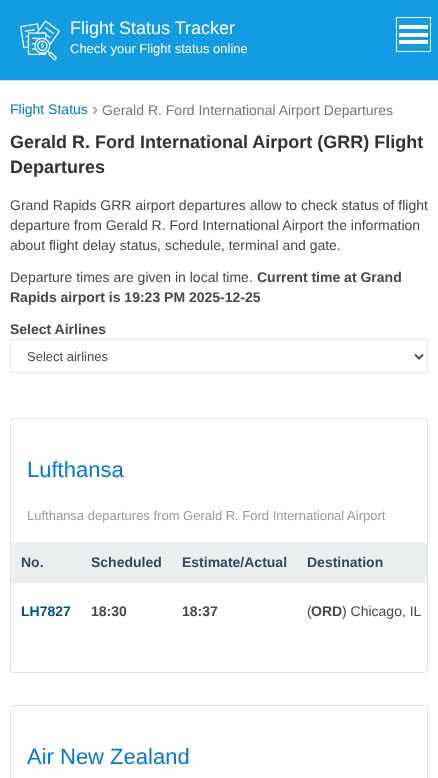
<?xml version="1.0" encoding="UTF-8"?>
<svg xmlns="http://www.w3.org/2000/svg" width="438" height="778">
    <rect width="100%" height="100%" fill="#FFFFFF"/>
    <rect x="0" y="80" width="438" height="1" fill="#D6D6D6"/>
    <rect x="0" y="0" width="438" height="80" fill="#149CE2"/>
    <image x="20" y="20" width="40" height="41" href="img_01.png"/>
    <text x="70" y="34" font-family="Liberation Sans" font-size="18" fill="#FFFFFF">Flight Status Tracker</text>
    <text x="70" y="53" font-family="Liberation Sans" font-size="13" fill="#FFFFFF">Check your Flight status online</text>
    <rect x="396.5" y="17.5" width="34" height="34" fill="none" stroke="#FFFFFF"/>
    <rect x="399" y="40" width="29" height="4" fill="#FFFFFF"/>
    <rect x="399" y="33" width="29" height="4" fill="#FFFFFF"/>
    <rect x="399" y="25" width="29" height="4" fill="#FFFFFF"/>
    <text x="10" y="114" font-family="Liberation Sans" font-size="14" fill="#0078D2">Flight Status</text>
    <text x="92" y="115" font-family="Liberation Sans" font-size="18" fill="#868E96">›</text>
    <text x="102" y="115" font-family="Liberation Sans" font-size="14" fill="#767676">Gerald R. Ford International Airport Departures</text>
    <text font-family="Liberation Sans" font-size="18" font-weight="700" fill="#333333">
        <tspan x="10" y="148">Gerald R. Ford International Airport (GRR) Flight</tspan>
        <tspan x="10" y="173">Departures</tspan>
    </text>
    <text font-family="Liberation Sans" font-size="14" fill="#484848">
        <tspan x="10" y="210">Grand Rapids GRR airport departures allow to check status of flight</tspan>
        <tspan x="10" y="230">departure from Gerald R. Ford International Airport the information</tspan>
        <tspan x="10" y="250">about flight delay status, schedule, terminal and gate.</tspan>
    </text>
    <text x="10" y="282" font-family="Liberation Sans" font-size="14" fill="#484848">Departure times are given in local time.</text>
    <text x="257" y="282" font-family="Liberation Sans" font-size="14" font-weight="700" fill="#484848">Current time at Grand</text>
    <text x="10" y="302" font-family="Liberation Sans" font-size="14" font-weight="700" fill="#484848">Rapids airport is 19:23 PM 2025-12-25</text>
    <text x="10" y="334" font-family="Liberation Sans" font-size="14" font-weight="700" fill="#484848">Select Airlines</text>
    <rect x="10.5" y="339.5" width="417" height="33" rx="1.5" fill="none" stroke="#E8E8E8"/>
    <path d="M 415 354.5 L 419 358.5 L 423 354.5" fill="none" stroke="#4D4D4D" stroke-width="2"/>
    <text x="27" y="361" font-family="Liberation Sans" font-size="13" fill="#484848">Select airlines</text>
    <rect x="10.5" y="418.5" width="417" height="254" rx="3.5" fill="none" stroke="#DFE1E5"/>
    <text x="27" y="477" font-family="Liberation Sans" font-size="22" fill="#0078D2">Lufthansa</text>
    <text x="27" y="520" font-family="Liberation Sans" font-size="13" fill="#999999">Lufthansa departures from Gerald R. Ford International Airport</text>
    <rect x="11" y="542" width="416" height="41" fill="#EBEFF0"/>
    <text x="21" y="567" font-family="Liberation Sans" font-size="14" font-weight="700" fill="#36495A">No.</text>
    <text x="91" y="567" font-family="Liberation Sans" font-size="14" font-weight="700" fill="#36495A">Scheduled</text>
    <text x="182" y="567" font-family="Liberation Sans" font-size="14" font-weight="700" fill="#36495A">Estimate/Actual</text>
    <text x="307" y="567" font-family="Liberation Sans" font-size="14" font-weight="700" fill="#36495A">Destination</text>
    <text x="21" y="616" font-family="Liberation Sans" font-size="14" font-weight="700" fill="#004E8A">LH7827</text>
    <text x="91" y="616" font-family="Liberation Sans" font-size="14" font-weight="700" fill="#484848">18:30</text>
    <text x="182" y="616" font-family="Liberation Sans" font-size="14" font-weight="700" fill="#484848">18:37</text>
    <text x="307" y="616" font-family="Liberation Sans" font-size="14" fill="#484848">(</text>
    <text x="311" y="616" font-family="Liberation Sans" font-size="14" font-weight="700" fill="#484848">ORD</text>
    <text x="342" y="616" font-family="Liberation Sans" font-size="14" fill="#484848">) Chicago, IL</text>
    <rect x="10.5" y="705.5" width="417" height="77" rx="3.5" fill="none" stroke="#DFE1E5"/>
    <text x="27" y="764" font-family="Liberation Sans" font-size="22" fill="#0078D2">Air New Zealand</text>
</svg>
